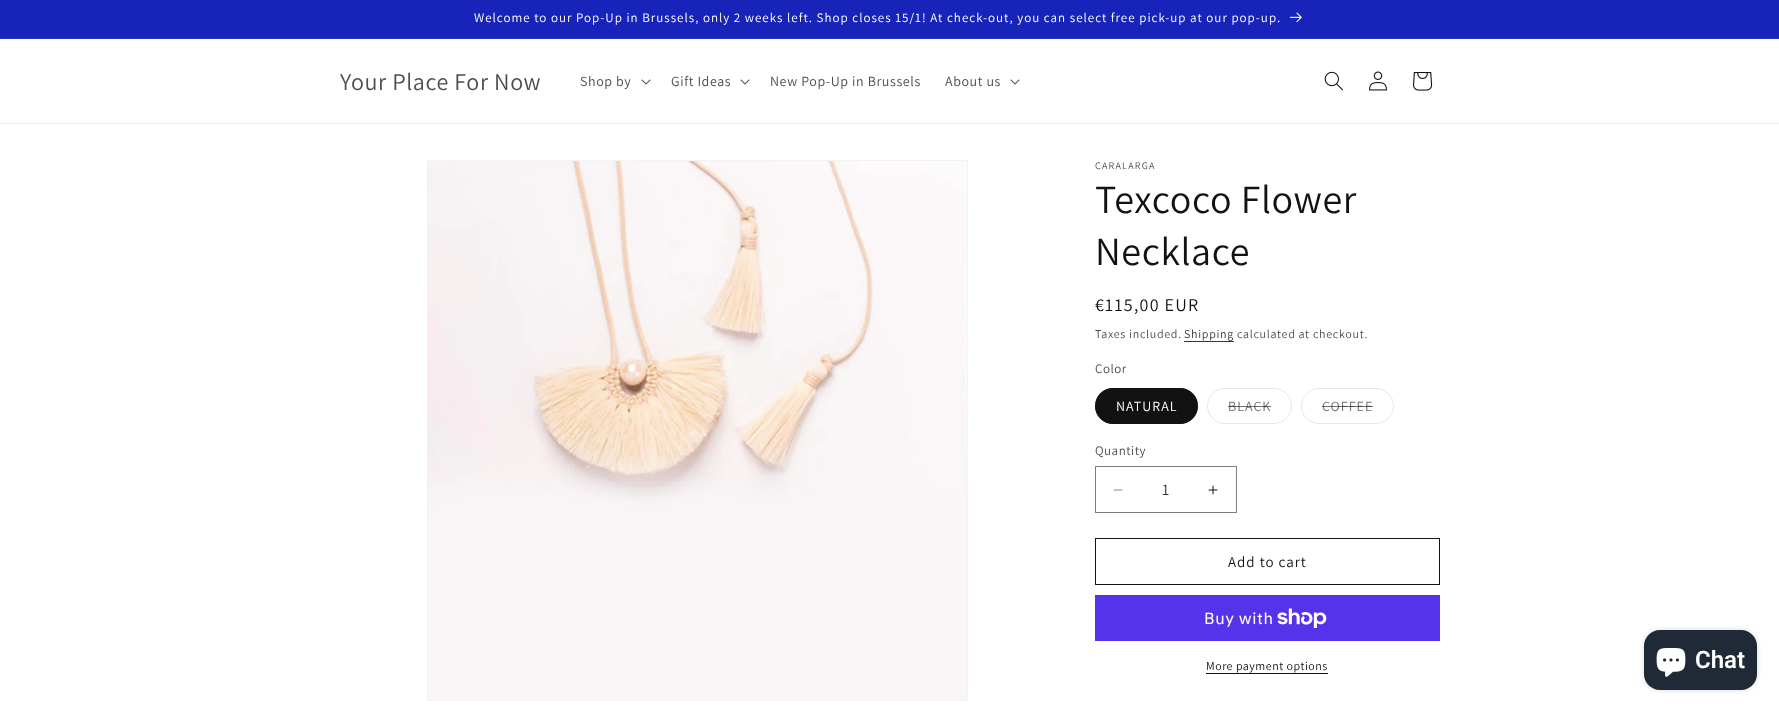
<?xml version="1.0" encoding="UTF-8"?>
<svg xmlns="http://www.w3.org/2000/svg" width="1779" height="711">
    <defs>
        <filter id="blur1" x="-50%" y="-200%" width="200%" height="500%"><feGaussianBlur stdDeviation="2.5"/></filter>
    </defs>
    <rect width="100%" height="100%" fill="#FFFFFF"/>
    <rect x="0" y="0" width="1779" height="38" fill="#1824B9"/>
    <rect x="0" y="38" width="1779" height="1" fill="#2A36BF"/>
    <text x="474" y="22" font-family="Assistant" font-size="13" letter-spacing="1" fill="#FFFFFF">Welcome to our Pop-Up in Brussels, only 2 weeks left. Shop closes 15/1! At check-out, you can select free pick-up at our pop-up.</text>
    <image x="1290" y="12" width="12" height="11" href="img_01.png"/>
    <rect x="0" y="123" width="1779" height="1" fill="#ECECEC"/>
    <text x="340" y="90" font-family="Assistant" font-size="24" letter-spacing="0.6" fill="#4D4D4D">Your Place For Now</text>
    <text x="580" y="86" font-family="Assistant" font-size="14" letter-spacing="0.6" fill="#4D4D4D">Shop by</text>
    <image x="641" y="79" width="10" height="6" href="img_02.png"/>
    <text x="671" y="86" font-family="Assistant" font-size="14" letter-spacing="0.6" fill="#4D4D4D">Gift Ideas</text>
    <image x="740" y="79" width="10" height="6" href="img_02.png"/>
    <text x="770" y="86" font-family="Assistant" font-size="14" letter-spacing="0.6" fill="#4D4D4D">New Pop-Up in Brussels</text>
    <text x="945" y="86" font-family="Assistant" font-size="14" letter-spacing="0.6" fill="#4D4D4D">About us</text>
    <image x="1010" y="79" width="10" height="6" href="img_02.png"/>
    <image x="1324" y="71" width="19" height="20" href="img_03.png"/>
    <image x="1369" y="71" width="18" height="20" href="img_04.png"/>
    <image x="1413" y="72" width="20" height="19" href="img_05.png"/>
    <rect x="427.5" y="160.5" width="540" height="540" fill="none" stroke="#F3F3F3"/>
    <image x="428" y="161" width="539" height="539" href="img_06.png"/>
    <text x="1095" y="169" font-family="Assistant" font-size="10" letter-spacing="1.25" fill="#4D4D4D">CARALARGA</text>
    <text font-family="Assistant" font-size="40" letter-spacing="0.6" fill="#121212">
        <tspan x="1095" y="213">Texcoco Flower</tspan>
        <tspan x="1095" y="265">Necklace</tspan>
    </text>
    <text x="1095" y="311" font-family="Assistant" font-size="18" letter-spacing="1.25" fill="#121212">€115,00 EUR</text>
    <text x="1095" y="338" font-family="Assistant" font-size="12" letter-spacing="0.7" fill="#4D4D4D">Taxes included.</text>
    <text x="1184" y="338" font-family="Assistant" font-size="12" letter-spacing="0.7" fill="#363636">Shipping</text>
    <rect x="1184" y="341" width="50" height="1" fill="#363636"/>
    <text x="1237" y="338" font-family="Assistant" font-size="12" letter-spacing="0.7" fill="#4D4D4D">calculated at checkout.</text>
    <text x="1095" y="373" font-family="Assistant" font-size="13" letter-spacing="0.5" fill="#4D4D4D">Color</text>
    <rect x="1095" y="388" width="103" height="36" rx="18" fill="#121212"/>
    <rect x="1095.5" y="388.5" width="102" height="35" rx="17.5" fill="none" stroke="#121212" stroke-opacity="0.55"/>
    <text x="1116" y="411" font-family="Assistant" font-size="14" letter-spacing="1" fill="#FFFFFF">NATURAL</text>
    <rect x="1207.5" y="388.5" width="84" height="35" rx="17.5" fill="none" stroke="#E7E7E7"/>
    <text x="1228" y="411" font-family="Assistant" font-size="14" letter-spacing="1" fill="#717171">BLACK</text>
    <rect x="1228" y="406" width="43" height="1" fill="#121212" fill-opacity="0.6"/>
    <rect x="1301.5" y="388.5" width="92" height="35" rx="17.5" fill="none" stroke="#E7E7E7"/>
    <text x="1322" y="411" font-family="Assistant" font-size="14" letter-spacing="1" fill="#717171">COFFEE</text>
    <rect x="1322" y="406" width="51" height="1" fill="#121212" fill-opacity="0.6"/>
    <text x="1095" y="455" font-family="Assistant" font-size="13" letter-spacing="0.5" fill="#4D4D4D">Quantity</text>
    <image x="1113" y="489" width="10" height="2" href="img_07.png"/>
    <image x="1208" y="485" width="10" height="10" href="img_08.png"/>
    <rect x="1095.5" y="466.5" width="141" height="46" fill="none" stroke="#7D7D7D"/>
    <text x="1162" y="495" font-family="Assistant" font-size="16" fill="#363636">1</text>
    <rect x="1095.5" y="538.5" width="344" height="46" fill="none" stroke="#121212"/>
    <text x="1228" y="567" font-family="Assistant" font-size="15" letter-spacing="1" fill="#121212">Add to cart</text>
    <rect x="1095" y="595" width="345" height="46" fill="#5433EB"/>
    <text x="1204" y="624" font-family="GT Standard" font-size="16" letter-spacing="0.6" fill="#FFFFFF">Buy with</text>
    <image x="1277" y="608" width="50" height="20" href="img_09.png"/>
    <text x="1206" y="670" font-family="Assistant" font-size="12" letter-spacing="0.5" fill="#121212">More payment options</text>
    <rect x="1206" y="673" width="122" height="1" fill="#121212"/>
    <rect x="1644" y="630" width="113" height="60" rx="16" fill="#000000" fill-opacity="0.15" filter="url(#blur1)"/>
    <rect x="1644" y="630" width="113" height="60" rx="16" fill="#202A36"/>
    <image x="1656" y="648" width="30" height="29" href="img_10.png"/>
    <text x="1695" y="668" font-family="Roboto" font-size="24" font-weight="600" fill="#FFFFFF">Chat</text>
</svg>
